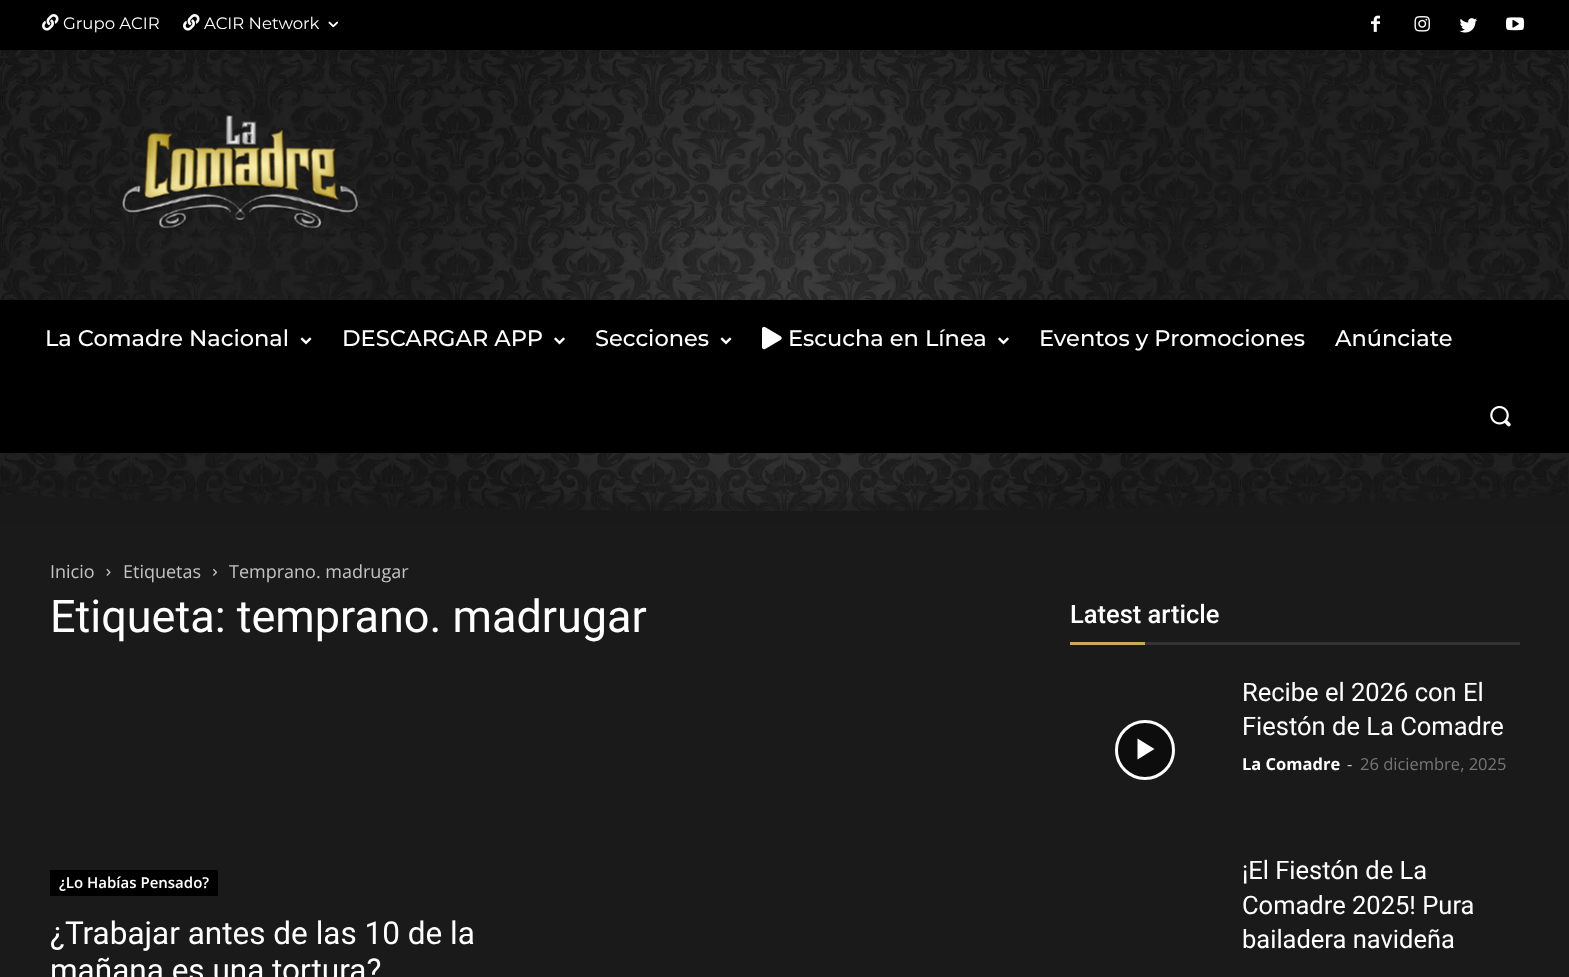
<?xml version="1.0" encoding="UTF-8"?>
<svg xmlns="http://www.w3.org/2000/svg" width="1569" height="977">
    <defs>
        <clipPath id="clip1"><rect x="0" y="225" width="1569" height="300"/></clipPath>
    </defs>
    <rect width="100%" height="100%" fill="#1A1A1A"/>
    <rect x="0" y="0" width="1569" height="50" fill="#000000"/>
    <image x="42" y="14" width="17" height="17" href="img_01.png"/>
    <text x="63" y="29" font-family="Montserrat" font-size="16.5" fill="#FFFFFF">Grupo ACIR</text>
    <image x="183" y="14" width="17" height="17" href="img_01.png"/>
    <text x="204" y="29" font-family="Montserrat" font-size="16.5" fill="#FFFFFF">ACIR Network</text>
    <image x="328" y="21" width="10" height="7" href="img_02.png"/>
    <image x="1371" y="15" width="9" height="17" href="img_03.png"/>
    <image x="1414" y="16" width="16" height="16" href="img_04.png"/>
    <image x="1459" y="18" width="18" height="15" href="img_05.png"/>
    <image x="1506" y="17" width="18" height="14" href="img_06.png"/>
    <image x="0" y="50" width="1569" height="461" href="img_07.png"/>
    <image x="122" y="114" width="236" height="116" href="img_08.png"/>
    <rect x="0" y="300" width="1569" height="153" fill="#000000"/>
    <text x="45" y="346" font-family="Montserrat" font-size="22.5" font-weight="500" fill="#FFFFFF">La Comadre Nacional</text>
    <image x="300" y="337" width="12" height="8" href="img_09.png"/>
    <text x="342" y="346" font-family="Montserrat" font-size="22.5" font-weight="500" fill="#FFFFFF">DESCARGAR APP</text>
    <image x="554" y="337" width="11" height="8" href="img_10.png"/>
    <text x="595" y="346" font-family="Montserrat" font-size="22.5" font-weight="500" fill="#FFFFFF">Secciones</text>
    <image x="720" y="337" width="12" height="8" href="img_09.png"/>
    <image x="762" y="326" width="20" height="24" href="img_11.png"/>
    <text x="788" y="346" font-family="Montserrat" font-size="22.5" font-weight="500" fill="#FFFFFF">Escucha en Línea</text>
    <image x="998" y="337" width="11" height="8" href="img_10.png"/>
    <text x="1039" y="346" font-family="Montserrat" font-size="22.5" font-weight="500" fill="#FFFFFF">Eventos y Promociones</text>
    <text x="1335" y="346" font-family="Montserrat" font-size="22.5" font-weight="500" fill="#FFFFFF">Anúnciate</text>
    <image x="1490" y="405" width="21" height="22" href="img_12.png"/>
    <g clip-path="url(#clip1)">
        <path d="M -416 604 V 460 C -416 460 -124 511 785 511 C 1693 511 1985 460 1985 460 V 604 Z" fill="#191919"/>
        <path d="M -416 604 V 430 C -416 430 -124 503 785 503 C 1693 503 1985 430 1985 430 V 604 Z" fill="#191919" fill-opacity="0.3"/>
        <path d="M -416 604 V 400 C -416 400 -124 496 785 496 C 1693 496 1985 400 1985 400 V 604 Z" fill="#191919" fill-opacity="0.15"/>
    </g>
    <text x="50" y="578" font-family="Open Sans" font-size="18" fill="#C3C3C3">Inicio</text>
    <image x="106" y="568" width="5" height="8" href="img_13.png"/>
    <text x="123" y="578" font-family="Open Sans" font-size="18" fill="#C3C3C3">Etiquetas</text>
    <image x="213" y="568" width="4" height="8" href="img_14.png"/>
    <text x="229" y="578" font-family="Open Sans" font-size="18" fill="#C3C3C3">Temprano. madrugar</text>
    <text x="50" y="632" font-family="Roboto" font-size="45" fill="#FFFFFF">Etiqueta: temprano. madrugar</text>
    <rect x="50" y="870" width="168" height="26" fill="#000000"/>
    <text x="59" y="888" font-family="Open Sans" font-size="15" font-weight="600" fill="#FFFFFF">¿Lo Habías Pensado?</text>
    <text font-family="Roboto" font-size="31.5" fill="#FFFFFF">
        <tspan x="50" y="944">¿Trabajar antes de las 10 de la</tspan>
        <tspan x="50" y="981">mañana es una tortura?</tspan>
    </text>
    <text x="1070" y="623" font-family="Roboto" font-size="25.5" font-weight="500" fill="#FFFFFF">Latest article</text>
    <rect x="1070" y="642" width="75" height="3" fill="#CCA959"/>
    <rect x="1145" y="642" width="375" height="3" fill="#333333"/>
    <circle cx="1145" cy="750" r="28.5" fill="#000000" fill-opacity="0.48" stroke="#FFFFFF" stroke-width="3"/>
    <path d="M 1137.5 738.5 V 759.5 L 1154.5 749 Z" fill="#FFFFFF"/>
    <text font-family="Roboto" font-size="25.5" fill="#FFFFFF">
        <tspan x="1242" y="701">Recibe el 2026 con El</tspan>
        <tspan x="1242" y="735">Fiestón de La Comadre</tspan>
    </text>
    <text x="1242" y="770" font-family="Open Sans" font-size="16.5" font-weight="700" fill="#FFFFFF">La Comadre</text>
    <text x="1347" y="770" font-family="Open Sans" font-size="16.5" fill="#CCCCCC">-</text>
    <text x="1360" y="770" font-family="Open Sans" font-size="16.5" fill="#767676">26 diciembre, 2025</text>
    <text font-family="Roboto" font-size="25.5" fill="#FFFFFF">
        <tspan x="1242" y="879">¡El Fiestón de La</tspan>
        <tspan x="1242" y="914">Comadre 2025! Pura</tspan>
        <tspan x="1242" y="948">bailadera navideña</tspan>
    </text>
</svg>
